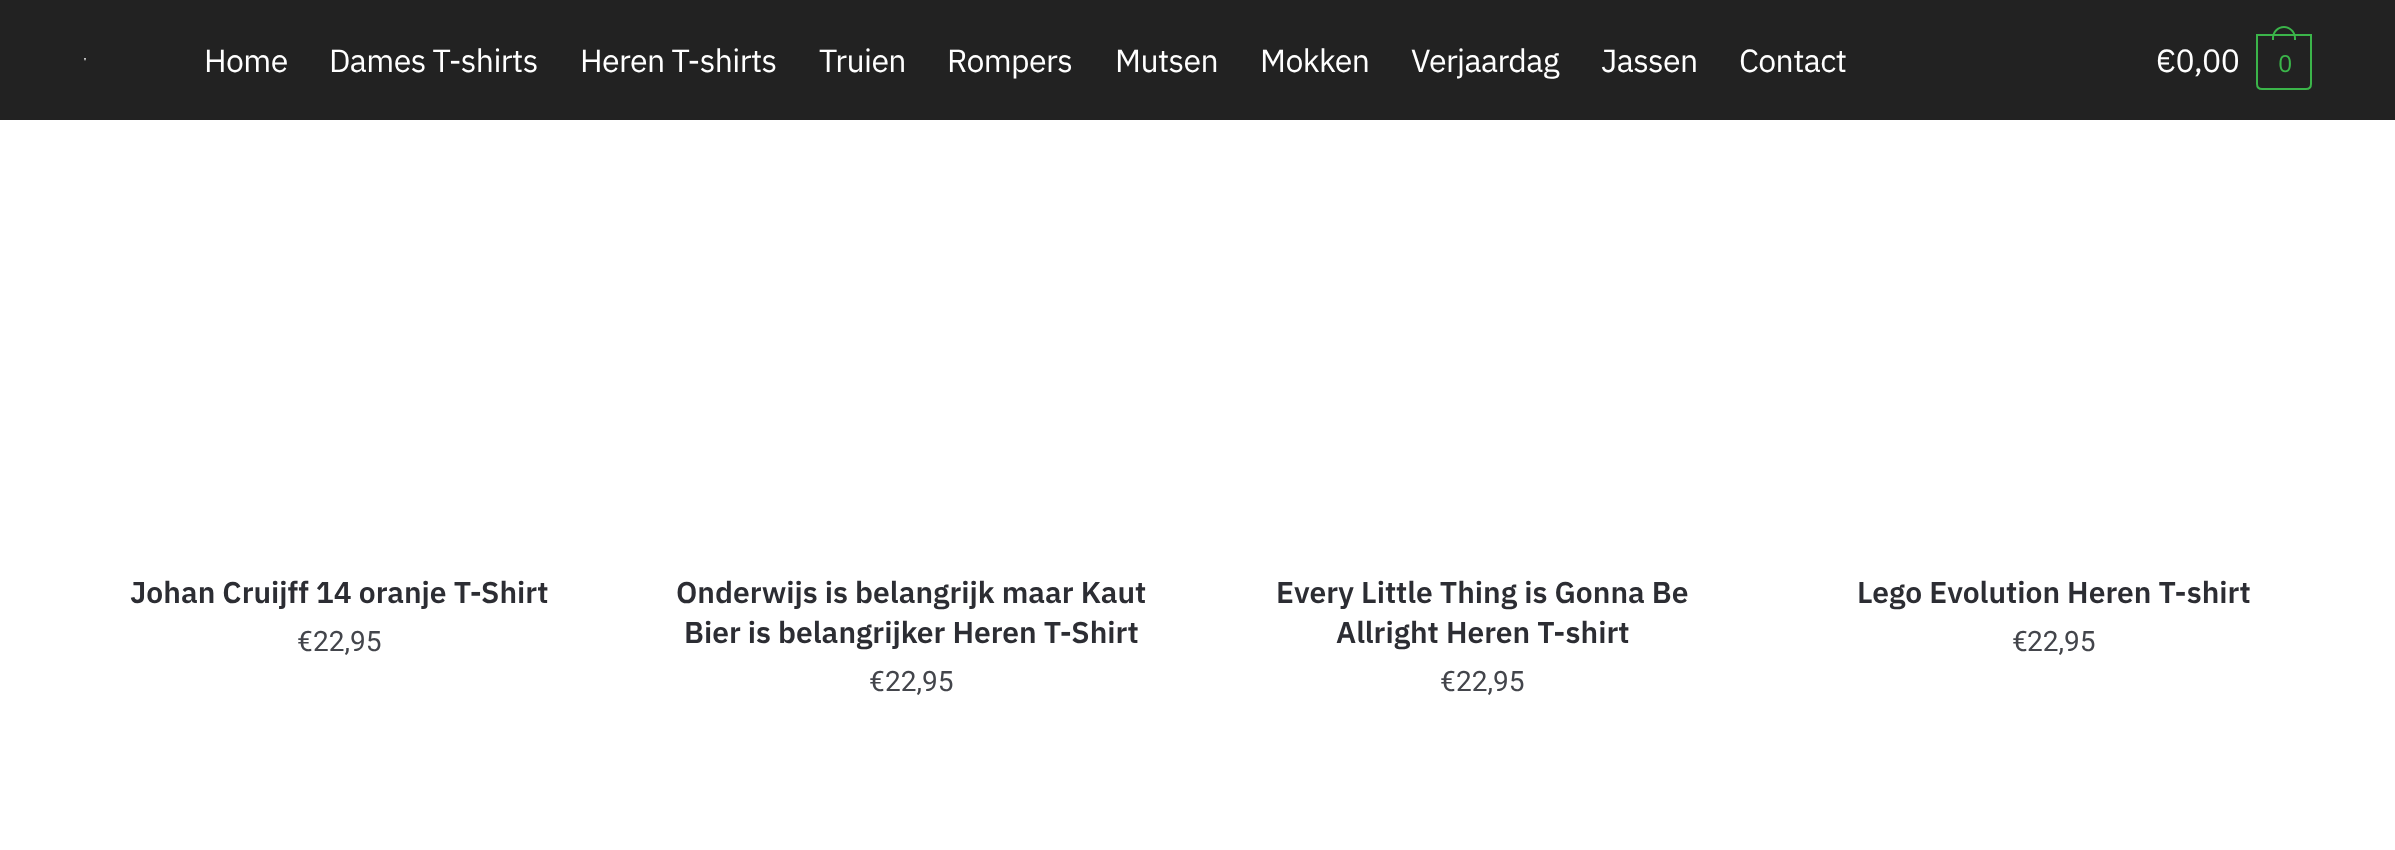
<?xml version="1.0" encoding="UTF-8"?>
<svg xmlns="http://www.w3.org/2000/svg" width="2395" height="850">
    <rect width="100%" height="100%" fill="#FFFFFF"/>
    <rect x="0" y="0" width="2395" height="120" fill="#222222"/>
    <image x="84" y="58" width="2" height="3" href="img_01.png"/>
    <text x="204" y="72" font-family="IBM Plex Sans" font-size="32" letter-spacing="-0.6" fill="#FFFFFF">Home</text>
    <text x="329" y="72" font-family="IBM Plex Sans" font-size="32" letter-spacing="-0.6" fill="#FFFFFF">Dames T-shirts</text>
    <text x="580" y="72" font-family="IBM Plex Sans" font-size="32" letter-spacing="-0.6" fill="#FFFFFF">Heren T-shirts</text>
    <text x="819" y="72" font-family="IBM Plex Sans" font-size="32" letter-spacing="-0.6" fill="#FFFFFF">Truien</text>
    <text x="947" y="72" font-family="IBM Plex Sans" font-size="32" letter-spacing="-0.6" fill="#FFFFFF">Rompers</text>
    <text x="1115" y="72" font-family="IBM Plex Sans" font-size="32" letter-spacing="-0.6" fill="#FFFFFF">Mutsen</text>
    <text x="1260" y="72" font-family="IBM Plex Sans" font-size="32" letter-spacing="-0.6" fill="#FFFFFF">Mokken</text>
    <text x="1411" y="72" font-family="IBM Plex Sans" font-size="32" letter-spacing="-0.6" fill="#FFFFFF">Verjaardag</text>
    <text x="1601" y="72" font-family="IBM Plex Sans" font-size="32" letter-spacing="-0.6" fill="#FFFFFF">Jassen</text>
    <text x="1739" y="72" font-family="IBM Plex Sans" font-size="32" letter-spacing="-0.6" fill="#FFFFFF">Contact</text>
    <text x="2156" y="72" font-family="IBM Plex Sans" font-size="32" letter-spacing="-0.6" fill="#FFFFFF">€0,00</text>
    <path d="M 2257 35 H 2311 V 84 C 2311 87 2309 89 2306 89 H 2262 C 2259 89 2257 87 2257 84 Z" fill="none" stroke="#3BB54A" stroke-width="2"/>
    <path d="M 2284 26 C 2290.5 26 2296 31.5 2296 38 V 40 H 2272 V 38 C 2272 31.5 2277.5 26 2284 26 Z M 2284 28 C 2289.5 28 2294 32.5 2294 38 V 40 H 2274 V 38 C 2274 32.5 2278.5 28 2284 28 Z" fill="#3BB54A" fill-rule="evenodd"/>
    <text x="2278" y="72" font-family="IBM Plex Sans" font-size="24" letter-spacing="-1" fill="#3BB54A">0</text>
    <text x="130" y="603" font-family="IBM Plex Sans" font-size="30" font-weight="600" fill="#2C2D33">Johan Cruijff 14 oranje T-Shirt</text>
    <text x="297" y="651" font-family="Roboto" font-size="28" fill="#43454B">€</text>
    <text x="313" y="651" font-family="Roboto" font-size="28" fill="#43454B">22,95</text>
    <text x="676" y="603" font-family="IBM Plex Sans" font-size="30" font-weight="600" fill="#2C2D33">Onderwijs is belangrijk maar Kaut</text>
    <text x="684" y="643" font-family="IBM Plex Sans" font-size="30" font-weight="600" fill="#2C2D33">Bier is belangrijker Heren T-Shirt</text>
    <text x="869" y="691" font-family="Roboto" font-size="28" fill="#43454B">€</text>
    <text x="885" y="691" font-family="Roboto" font-size="28" fill="#43454B">22,95</text>
    <text x="1276" y="603" font-family="IBM Plex Sans" font-size="30" font-weight="600" fill="#2C2D33">Every Little Thing is Gonna Be</text>
    <text x="1336" y="643" font-family="IBM Plex Sans" font-size="30" font-weight="600" fill="#2C2D33">Allright Heren T-shirt</text>
    <text x="1440" y="691" font-family="Roboto" font-size="28" fill="#43454B">€</text>
    <text x="1456" y="691" font-family="Roboto" font-size="28" fill="#43454B">22,95</text>
    <text x="1857" y="603" font-family="IBM Plex Sans" font-size="30" font-weight="600" fill="#2C2D33">Lego Evolution Heren T-shirt</text>
    <text x="2012" y="651" font-family="Roboto" font-size="28" fill="#43454B">€</text>
    <text x="2027" y="651" font-family="Roboto" font-size="28" fill="#43454B">22,95</text>
</svg>
